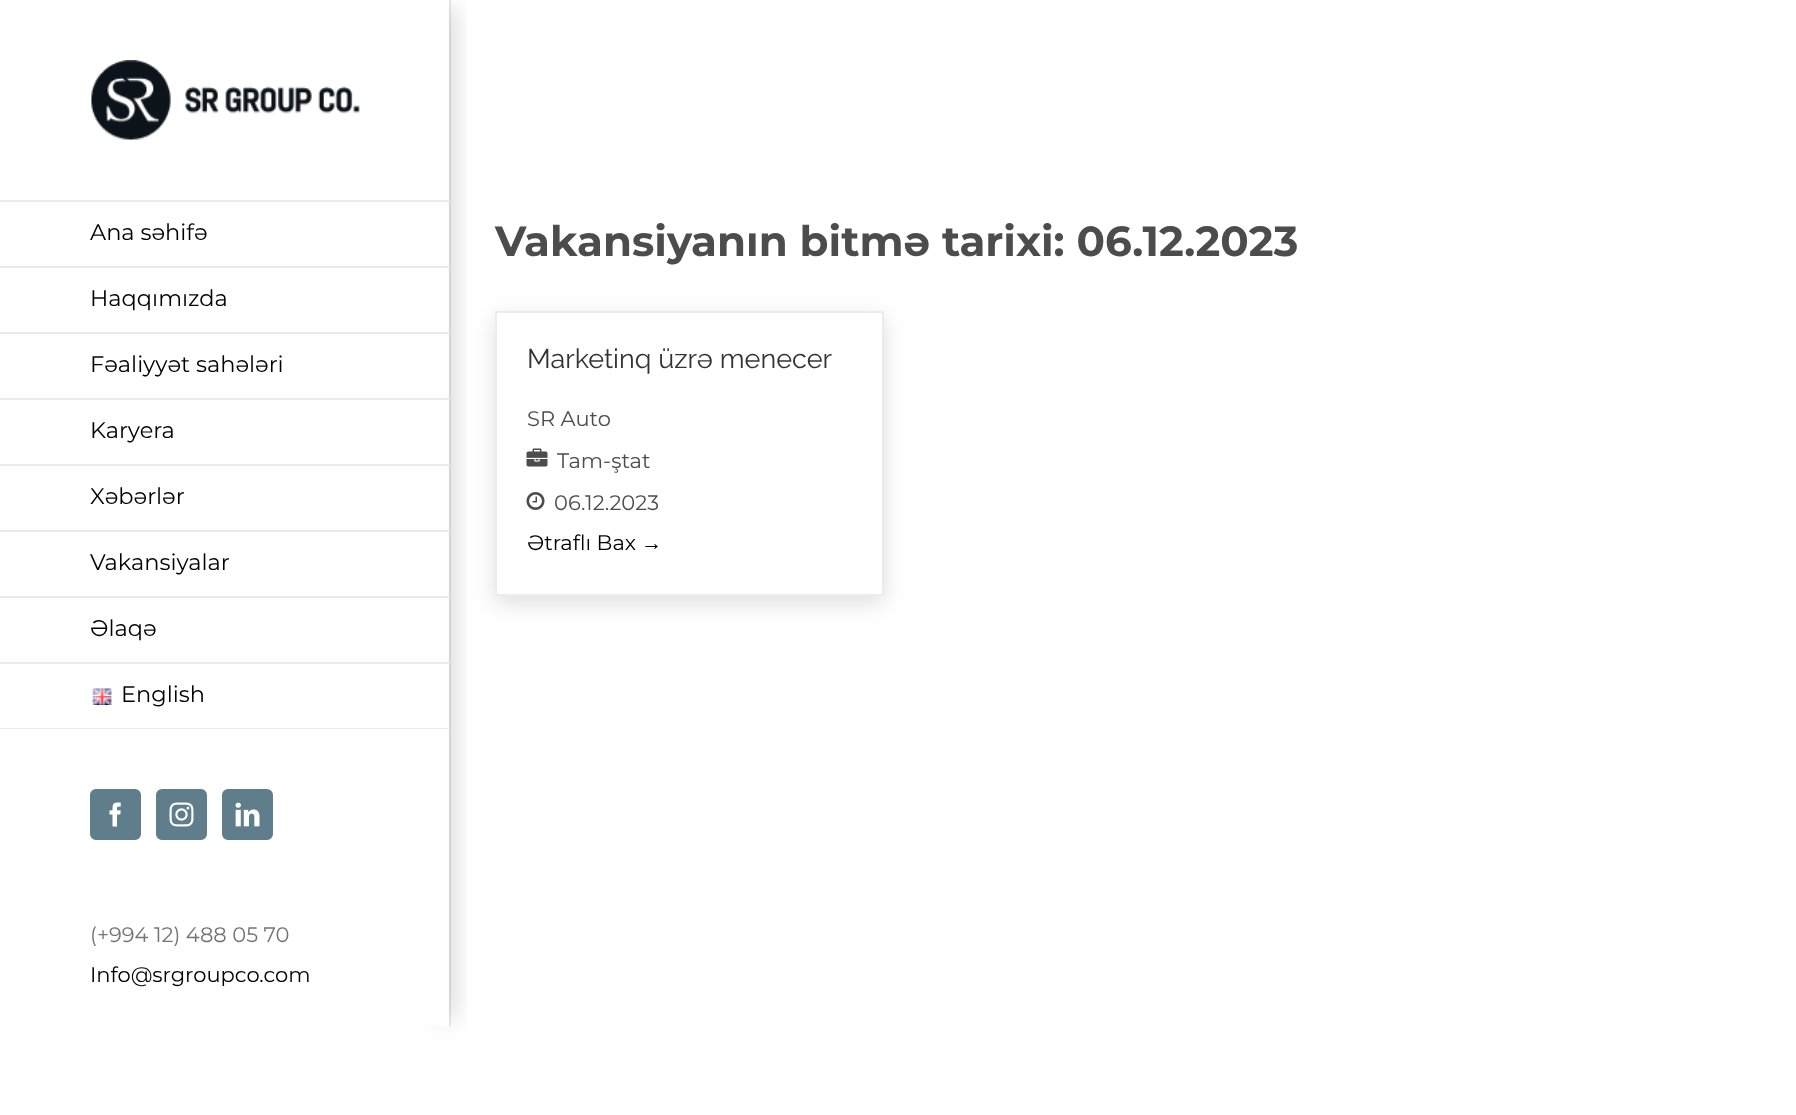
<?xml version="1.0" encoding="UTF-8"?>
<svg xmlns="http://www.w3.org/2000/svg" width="1796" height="1115">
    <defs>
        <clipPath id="clip1"><path d="M 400 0 H 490 V 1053 H 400 Z M 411 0 H 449 V 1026 H 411 Z" clip-rule="evenodd"/></clipPath>
        <filter id="blur1" x="-50%" y="-200%" width="200%" height="500%"><feGaussianBlur stdDeviation="11"/></filter>
    </defs>
    <rect width="100%" height="100%" fill="#FFFFFF"/>
    <image x="91" y="60" width="269" height="80" href="img_01.png"/>
    <rect x="449" y="0" width="2" height="1026" fill="#EAEAEA"/>
    <g clip-path="url(#clip1)">
        <rect x="434" y="8" width="22" height="1011" fill="#000000" fill-opacity="0.14" filter="url(#blur1)"/>
    </g>
    <rect x="0" y="200" width="450" height="2" fill="#EAEAEA"/>
    <rect x="0" y="266" width="450" height="2" fill="#EAEAEA"/>
    <text x="90" y="240" font-family="Montserrat" font-size="22.5" fill="#000000">Ana səhifə</text>
    <rect x="0" y="332" width="450" height="2" fill="#EAEAEA"/>
    <text x="90" y="306" font-family="Montserrat" font-size="22.5" fill="#000000">Haqqımızda</text>
    <rect x="0" y="398" width="450" height="2" fill="#EAEAEA"/>
    <text x="90" y="372" font-family="Montserrat" font-size="22.5" fill="#000000">Fəaliyyət sahələri</text>
    <rect x="0" y="464" width="450" height="2" fill="#EAEAEA"/>
    <text x="90" y="438" font-family="Montserrat" font-size="22.5" fill="#000000">Karyera</text>
    <rect x="0" y="530" width="450" height="2" fill="#EAEAEA"/>
    <text x="90" y="504" font-family="Montserrat" font-size="22.5" fill="#000000">Xəbərlər</text>
    <rect x="0" y="596" width="450" height="2" fill="#EAEAEA"/>
    <text x="90" y="570" font-family="Montserrat" font-size="22.5" fill="#000000">Vakansiyalar</text>
    <rect x="0" y="662" width="450" height="2" fill="#EAEAEA"/>
    <text x="90" y="636" font-family="Montserrat" font-size="22.5" fill="#000000">Əlaqə</text>
    <rect x="0" y="728" width="450" height="1" fill="#EAEAEA"/>
    <image x="92" y="688" width="20" height="17" href="img_02.png"/>
    <text x="121" y="702" font-family="Montserrat" font-size="22.5" fill="#000000">English</text>
    <rect x="91" y="790" width="49" height="49" rx="5" fill="#607D8B" stroke="#607D8B" stroke-width="2"/>
    <image x="109" y="802" width="12" height="25" href="img_03.png"/>
    <rect x="157" y="790" width="49" height="49" rx="5" fill="#607D8B" stroke="#607D8B" stroke-width="2"/>
    <image x="169" y="802" width="25" height="25" href="img_04.png"/>
    <rect x="223" y="790" width="49" height="49" rx="5" fill="#607D8B" stroke="#607D8B" stroke-width="2"/>
    <image x="235" y="802" width="25" height="25" href="img_05.png"/>
    <text x="90" y="942" font-family="Montserrat" font-size="21" fill="#747474">(+994 12) 488 05 70</text>
    <text x="90" y="982" font-family="Montserrat" font-size="21" fill="#000000">Info@srgroupco.com</text>
    <text x="495" y="256" font-family="Montserrat" font-size="42" font-weight="700" fill="#4C4C4C">Vakansiyanın bitmə tarixi: 06.12.2023</text>
    <rect x="495" y="318" width="389" height="285" fill="#000000" fill-opacity="0.13" filter="url(#blur1)"/>
    <rect x="496" y="312" width="387" height="283" fill="#FFFFFF" stroke="#ECECEC" stroke-width="2"/>
    <text x="527" y="368" font-family="Raleway" font-size="27" fill="#333333">Marketinq üzrə menecer</text>
    <text x="527" y="426" font-family="Montserrat" font-size="21" fill="#4C4C4C">SR Auto</text>
    <image x="526" y="448" width="22" height="19" href="img_06.png"/>
    <text x="557" y="468" font-family="Montserrat" font-size="21" fill="#4C4C4C">Tam-ştat</text>
    <image x="526" y="492" width="19" height="18" href="img_07.png"/>
    <text x="554" y="510" font-family="Montserrat" font-size="21" fill="#4C4C4C">06.12.2023</text>
    <text x="527" y="550" font-family="Montserrat" font-size="21" fill="#000000">Ətraflı Bax</text>
    <text x="641" y="550" font-family="Liberation Sans" font-size="21" fill="#000000">→</text>
</svg>
